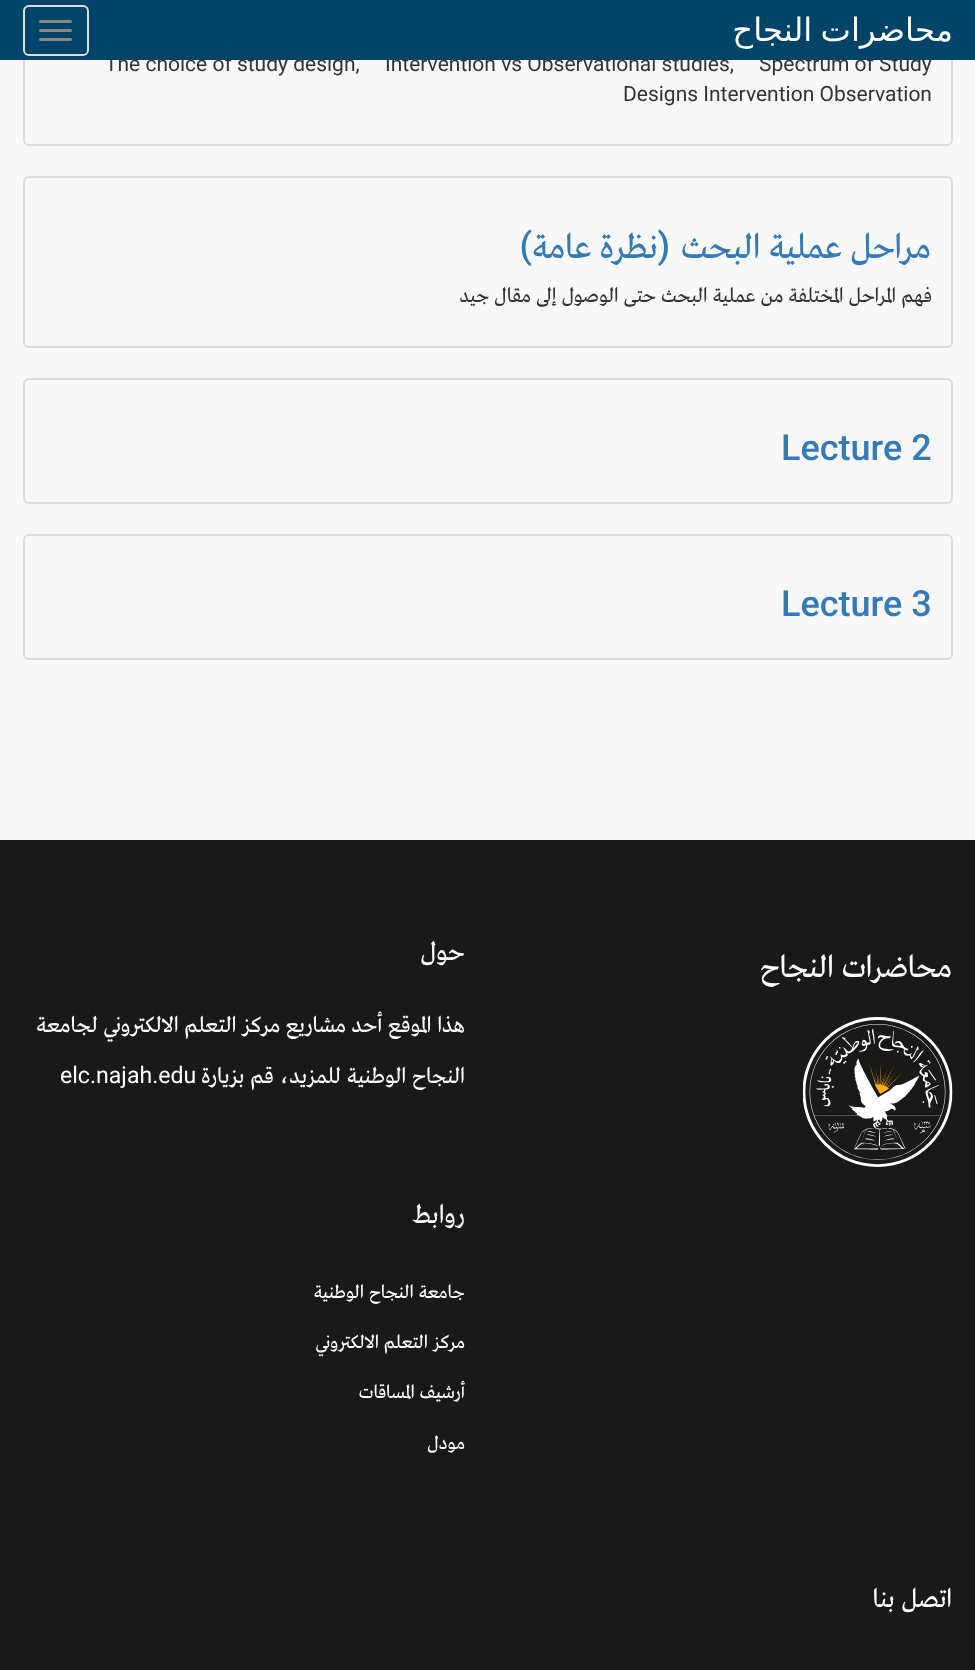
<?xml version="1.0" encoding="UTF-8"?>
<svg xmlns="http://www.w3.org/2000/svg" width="975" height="1670">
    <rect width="100%" height="100%" fill="#F8F8F8"/>
    <rect x="24" y="-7" width="928" height="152" rx="5" fill="none" stroke="#DDDDDD" stroke-width="2"/>
    <text x="759" y="71" font-family="Roboto" font-size="21" fill="#333333">Spectrum of Study</text>
    <text x="385" y="71" font-family="Roboto" font-size="21" fill="#333333">Intervention vs Observational studies,</text>
    <text x="105" y="71" font-family="Roboto" font-size="21" fill="#333333">The choice of study design,</text>
    <rect x="0" y="0" width="975" height="60" fill="#004467"/>
    <text x="953" y="41" word-spacing="-2" font-family="DejaVu Sans" font-size="32.25" direction="rtl" fill="#FFFFFF">محاضرات النجاح</text>
    <rect x="24" y="6" width="64" height="49" rx="5" fill="none" stroke="#DDDDDD" stroke-width="2"/>
    <rect x="39" y="20" width="33" height="3" rx="1.5" fill="#888888"/>
    <rect x="39" y="29" width="33" height="3" rx="1.5" fill="#888888"/>
    <rect x="39" y="38" width="33" height="3" rx="1.5" fill="#888888"/>
    <text x="623" y="101" font-family="Roboto" font-size="21" fill="#333333">Designs Intervention Observation</text>
    <rect x="24" y="177" width="928" height="170" rx="5" fill="none" stroke="#DDDDDD" stroke-width="2"/>
    <text x="931" y="258" word-spacing="1" font-family="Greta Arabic" font-size="36" direction="rtl" fill="#337AB7">مراحل عملية البحث</text>
    <text x="670" y="258" font-family="Roboto" font-size="36" font-weight="500" direction="rtl" fill="#337AB7">(</text>
    <text x="658" y="258" word-spacing="1" font-family="Greta Arabic" font-size="36" direction="rtl" fill="#337AB7">نظرة عامة</text>
    <text x="532" y="258" font-family="Roboto" font-size="36" font-weight="500" direction="rtl" fill="#337AB7">)</text>
    <text x="932" y="302" word-spacing="1" font-family="Greta Arabic" font-size="21" direction="rtl" fill="#333333">فهم المراحل المختلفة من عملية البحث حتى الوصول إلى مقال جيد</text>
    <rect x="24" y="379" width="928" height="124" rx="5" fill="none" stroke="#DDDDDD" stroke-width="2"/>
    <text x="781" y="460" font-family="Roboto" font-size="36" font-weight="500" fill="#337AB7">Lecture 2</text>
    <rect x="24" y="535" width="928" height="124" rx="5" fill="none" stroke="#DDDDDD" stroke-width="2"/>
    <text x="781" y="616" font-family="Roboto" font-size="36" font-weight="500" fill="#337AB7">Lecture 3</text>
    <rect x="0" y="840" width="975" height="830" fill="#191919"/>
    <text x="952" y="977" word-spacing="1" font-family="Greta Arabic" font-size="32.25" direction="rtl" fill="#FFFFFF">محاضرات النجاح</text>
    <image x="803" y="1017" width="150" height="150" href="img_01.png"/>
    <text x="465" y="960" font-family="Greta Arabic" font-size="27" direction="rtl" fill="#FFFFFF">حول</text>
    <text x="465" y="1032" word-spacing="1" font-family="Greta Arabic" font-size="23.1" direction="rtl" fill="#FFFFFF">هذا الموقع أحد مشاريع مركز التعلم الالكتروني لجامعة</text>
    <text x="465" y="1083" word-spacing="1" font-family="Greta Arabic" font-size="23.1" direction="rtl" fill="#FFFFFF">النجاح الوطنية</text>
    <text x="341" y="1083" word-spacing="1" font-family="Greta Arabic" font-size="23.1" direction="rtl" fill="#FFFFFF">للمزيد، قم بزيارة</text>
    <text x="60" y="1083" font-family="Roboto" font-size="23.1" fill="#FFFFFF">elc.najah.edu</text>
    <text x="465" y="1223" font-family="Greta Arabic" font-size="27" direction="rtl" fill="#FFFFFF">روابط</text>
    <text x="465" y="1298" word-spacing="1" font-family="Greta Arabic" font-size="19.5" direction="rtl" fill="#FFFFFF">جامعة النجاح الوطنية</text>
    <text x="465" y="1348" word-spacing="1" font-family="Greta Arabic" font-size="19.5" direction="rtl" fill="#FFFFFF">مركز التعلم الالكتروني</text>
    <text x="465" y="1398" word-spacing="1" font-family="Greta Arabic" font-size="19.5" direction="rtl" fill="#FFFFFF">أرشيف المساقات</text>
    <text x="465" y="1449" font-family="Greta Arabic" font-size="19.5" direction="rtl" fill="#FFFFFF">مودل</text>
    <text x="952" y="1607" word-spacing="1" font-family="Greta Arabic" font-size="27" direction="rtl" fill="#FFFFFF">اتصل بنا</text>
</svg>
